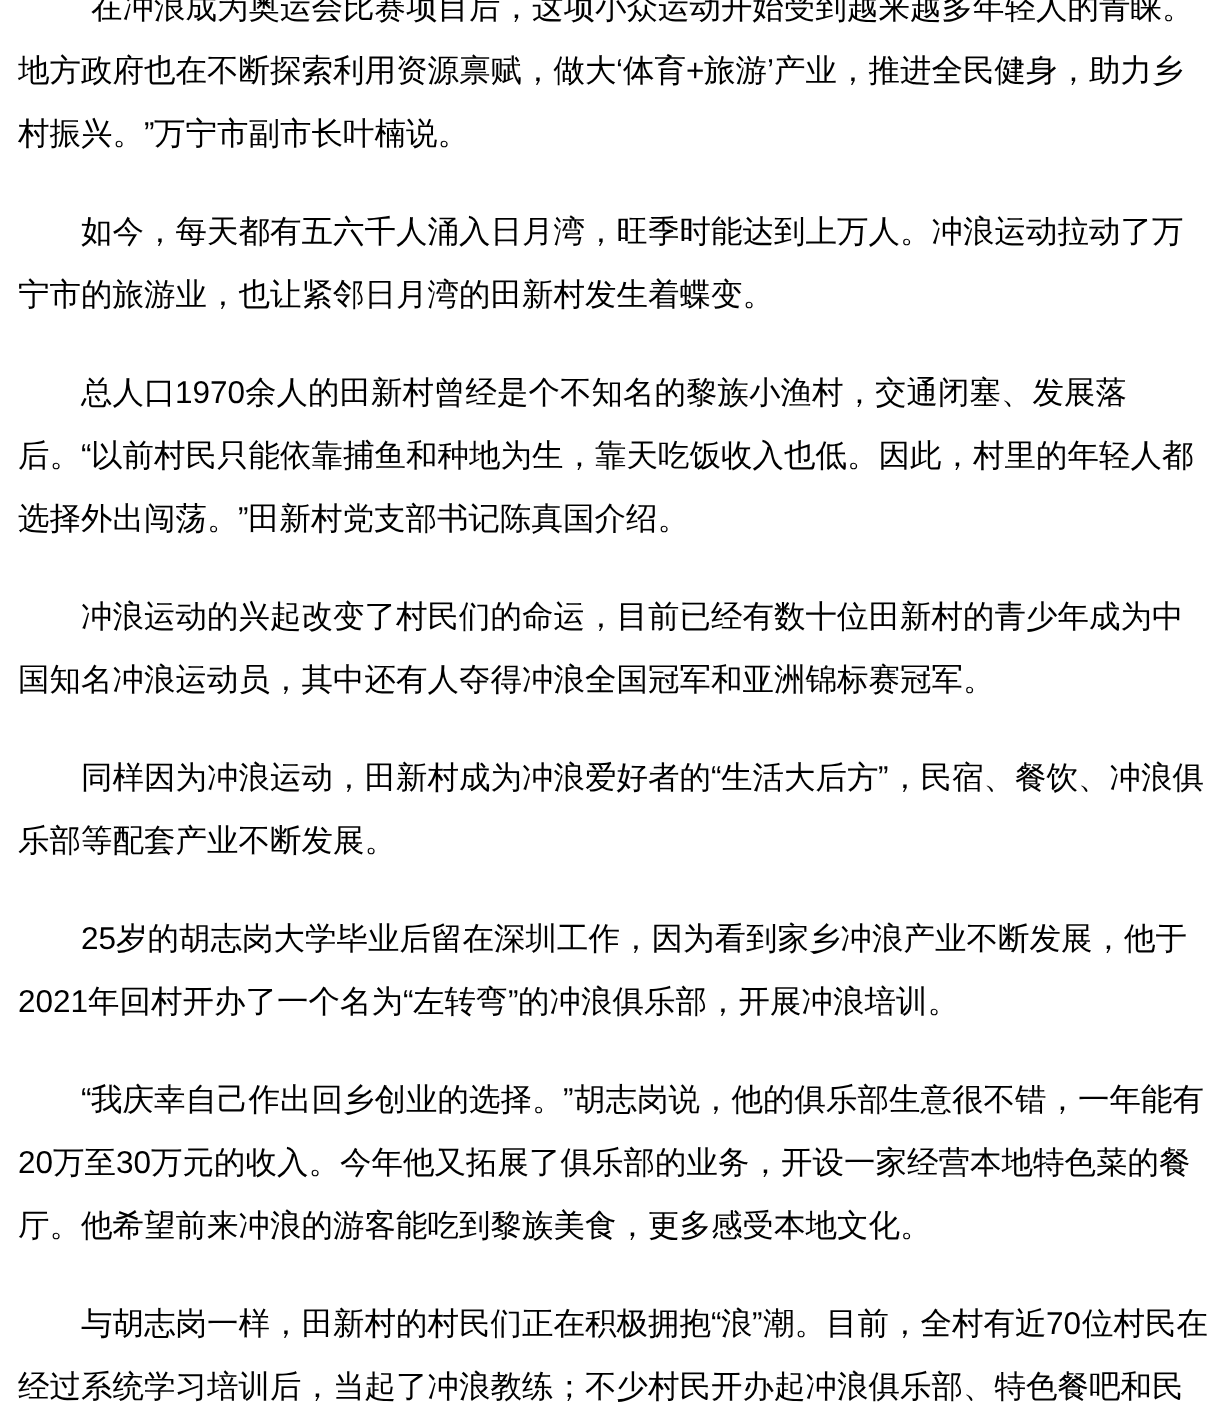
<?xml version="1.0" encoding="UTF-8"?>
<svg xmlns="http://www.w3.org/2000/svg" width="1226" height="1403">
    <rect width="100%" height="100%" fill="#FFFFFF"/>
    <text x="91" y="18" font-family="WenQuanYi Zen Hei" font-size="31.5" font-weight="500" fill="#000000">在冲浪成为奥运会比赛项目后，这项小众运动开始受到越来越多年轻人的青睐。</text>
    <text x="18" y="81" font-family="WenQuanYi Zen Hei" font-size="31.5" font-weight="500" fill="#000000">地方政府也在不断探索利用资源禀赋，做大</text>
    <text x="616" y="81" font-family="Liberation Sans" font-size="31.5" fill="#000000">‘</text>
    <text x="623" y="81" font-family="WenQuanYi Zen Hei" font-size="31.5" font-weight="500" fill="#000000">体育</text>
    <text x="686" y="81" font-family="Liberation Sans" font-size="31.5" fill="#000000">+</text>
    <text x="704" y="81" font-family="WenQuanYi Zen Hei" font-size="31.5" font-weight="500" fill="#000000">旅游</text>
    <text x="767" y="81" font-family="Liberation Sans" font-size="31.5" fill="#000000">’</text>
    <text x="774" y="81" font-family="WenQuanYi Zen Hei" font-size="31.5" font-weight="500" fill="#000000">产业，推进全民健身，助力乡</text>
    <text x="18" y="144" font-family="WenQuanYi Zen Hei" font-size="31.5" font-weight="500" fill="#000000">村振兴。</text>
    <text x="144" y="144" font-family="Liberation Sans" font-size="31.5" fill="#000000">”</text>
    <text x="154" y="144" font-family="WenQuanYi Zen Hei" font-size="31.5" font-weight="500" fill="#000000">万宁市副市长叶楠说。</text>
    <text x="81" y="242" font-family="WenQuanYi Zen Hei" font-size="31.5" font-weight="500" fill="#000000">如今，每天都有五六千人涌入日月湾，旺季时能达到上万人。冲浪运动拉动了万</text>
    <text x="18" y="305" font-family="WenQuanYi Zen Hei" font-size="31.5" font-weight="500" fill="#000000">宁市的旅游业，也让紧邻日月湾的田新村发生着蝶变。</text>
    <text x="81" y="403" font-family="WenQuanYi Zen Hei" font-size="31.5" font-weight="500" fill="#000000">总人口</text>
    <text x="175" y="403" font-family="Liberation Sans" font-size="31.5" fill="#000000">1970</text>
    <text x="245" y="403" font-family="WenQuanYi Zen Hei" font-size="31.5" font-weight="500" fill="#000000">余人的田新村曾经是个不知名的黎族小渔村，交通闭塞、发展落</text>
    <text x="18" y="466" font-family="WenQuanYi Zen Hei" font-size="31.5" font-weight="500" fill="#000000">后。</text>
    <text x="81" y="466" font-family="Liberation Sans" font-size="31.5" fill="#000000">“</text>
    <text x="91" y="466" font-family="WenQuanYi Zen Hei" font-size="31.5" font-weight="500" fill="#000000">以前村民只能依靠捕鱼和种地为生，靠天吃饭收入也低。因此，村里的年轻人都</text>
    <text x="18" y="529" font-family="WenQuanYi Zen Hei" font-size="31.5" font-weight="500" fill="#000000">选择外出闯荡。</text>
    <text x="238" y="529" font-family="Liberation Sans" font-size="31.5" fill="#000000">”</text>
    <text x="248" y="529" font-family="WenQuanYi Zen Hei" font-size="31.5" font-weight="500" fill="#000000">田新村党支部书记陈真国介绍。</text>
    <text x="81" y="627" font-family="WenQuanYi Zen Hei" font-size="31.5" font-weight="500" fill="#000000">冲浪运动的兴起改变了村民们的命运，目前已经有数十位田新村的青少年成为中</text>
    <text x="18" y="690" font-family="WenQuanYi Zen Hei" font-size="31.5" font-weight="500" fill="#000000">国知名冲浪运动员，其中还有人夺得冲浪全国冠军和亚洲锦标赛冠军。</text>
    <text x="81" y="788" font-family="WenQuanYi Zen Hei" font-size="31.5" font-weight="500" fill="#000000">同样因为冲浪运动，田新村成为冲浪爱好者的</text>
    <text x="711" y="788" font-family="Liberation Sans" font-size="31.5" fill="#000000">“</text>
    <text x="721" y="788" font-family="WenQuanYi Zen Hei" font-size="31.5" font-weight="500" fill="#000000">生活大后方</text>
    <text x="878" y="788" font-family="Liberation Sans" font-size="31.5" fill="#000000">”</text>
    <text x="889" y="788" font-family="WenQuanYi Zen Hei" font-size="31.5" font-weight="500" fill="#000000">，民宿、餐饮、冲浪俱</text>
    <text x="18" y="851" font-family="WenQuanYi Zen Hei" font-size="31.5" font-weight="500" fill="#000000">乐部等配套产业不断发展。</text>
    <text x="81" y="949" font-family="Liberation Sans" font-size="31.5" fill="#000000">25</text>
    <text x="116" y="949" font-family="WenQuanYi Zen Hei" font-size="31.5" font-weight="500" fill="#000000">岁的胡志岗大学毕业后留在深圳工作，因为看到家乡冲浪产业不断发展，他于</text>
    <text x="18" y="1012" font-family="Liberation Sans" font-size="31.5" fill="#000000">2021</text>
    <text x="88" y="1012" font-family="WenQuanYi Zen Hei" font-size="31.5" font-weight="500" fill="#000000">年回村开办了一个名为</text>
    <text x="403" y="1012" font-family="Liberation Sans" font-size="31.5" fill="#000000">“</text>
    <text x="413" y="1012" font-family="WenQuanYi Zen Hei" font-size="31.5" font-weight="500" fill="#000000">左转弯</text>
    <text x="508" y="1012" font-family="Liberation Sans" font-size="31.5" fill="#000000">”</text>
    <text x="518" y="1012" font-family="WenQuanYi Zen Hei" font-size="31.5" font-weight="500" fill="#000000">的冲浪俱乐部，开展冲浪培训。</text>
    <text x="81" y="1110" font-family="Liberation Sans" font-size="31.5" fill="#000000">“</text>
    <text x="91" y="1110" font-family="WenQuanYi Zen Hei" font-size="31.5" font-weight="500" fill="#000000">我庆幸自己作出回乡创业的选择。</text>
    <text x="563" y="1110" font-family="Liberation Sans" font-size="31.5" fill="#000000">”</text>
    <text x="574" y="1110" font-family="WenQuanYi Zen Hei" font-size="31.5" font-weight="500" fill="#000000">胡志岗说，他的俱乐部生意很不错，一年能有</text>
    <text x="18" y="1173" font-family="Liberation Sans" font-size="31.5" fill="#000000">20</text>
    <text x="53" y="1173" font-family="WenQuanYi Zen Hei" font-size="31.5" font-weight="500" fill="#000000">万至</text>
    <text x="116" y="1173" font-family="Liberation Sans" font-size="31.5" fill="#000000">30</text>
    <text x="151" y="1173" font-family="WenQuanYi Zen Hei" font-size="31.5" font-weight="500" fill="#000000">万元的收入。今年他又拓展了俱乐部的业务，开设一家经营本地特色菜的餐</text>
    <text x="18" y="1236" font-family="WenQuanYi Zen Hei" font-size="31.5" font-weight="500" fill="#000000">厅。他希望前来冲浪的游客能吃到黎族美食，更多感受本地文化。</text>
    <text x="81" y="1334" font-family="WenQuanYi Zen Hei" font-size="31.5" font-weight="500" fill="#000000">与胡志岗一样，田新村的村民们正在积极拥抱</text>
    <text x="711" y="1334" font-family="Liberation Sans" font-size="31.5" fill="#000000">“</text>
    <text x="721" y="1334" font-family="WenQuanYi Zen Hei" font-size="31.5" font-weight="500" fill="#000000">浪</text>
    <text x="752" y="1334" font-family="Liberation Sans" font-size="31.5" fill="#000000">”</text>
    <text x="763" y="1334" font-family="WenQuanYi Zen Hei" font-size="31.5" font-weight="500" fill="#000000">潮。目前，全村有近</text>
    <text x="1046" y="1334" font-family="Liberation Sans" font-size="31.5" fill="#000000">70</text>
    <text x="1082" y="1334" font-family="WenQuanYi Zen Hei" font-size="31.5" font-weight="500" fill="#000000">位村民在</text>
    <text x="18" y="1397" font-family="WenQuanYi Zen Hei" font-size="31.5" font-weight="500" fill="#000000">经过系统学习培训后，当起了冲浪教练；不少村民开办起冲浪俱乐部、特色餐吧和民</text>
</svg>
